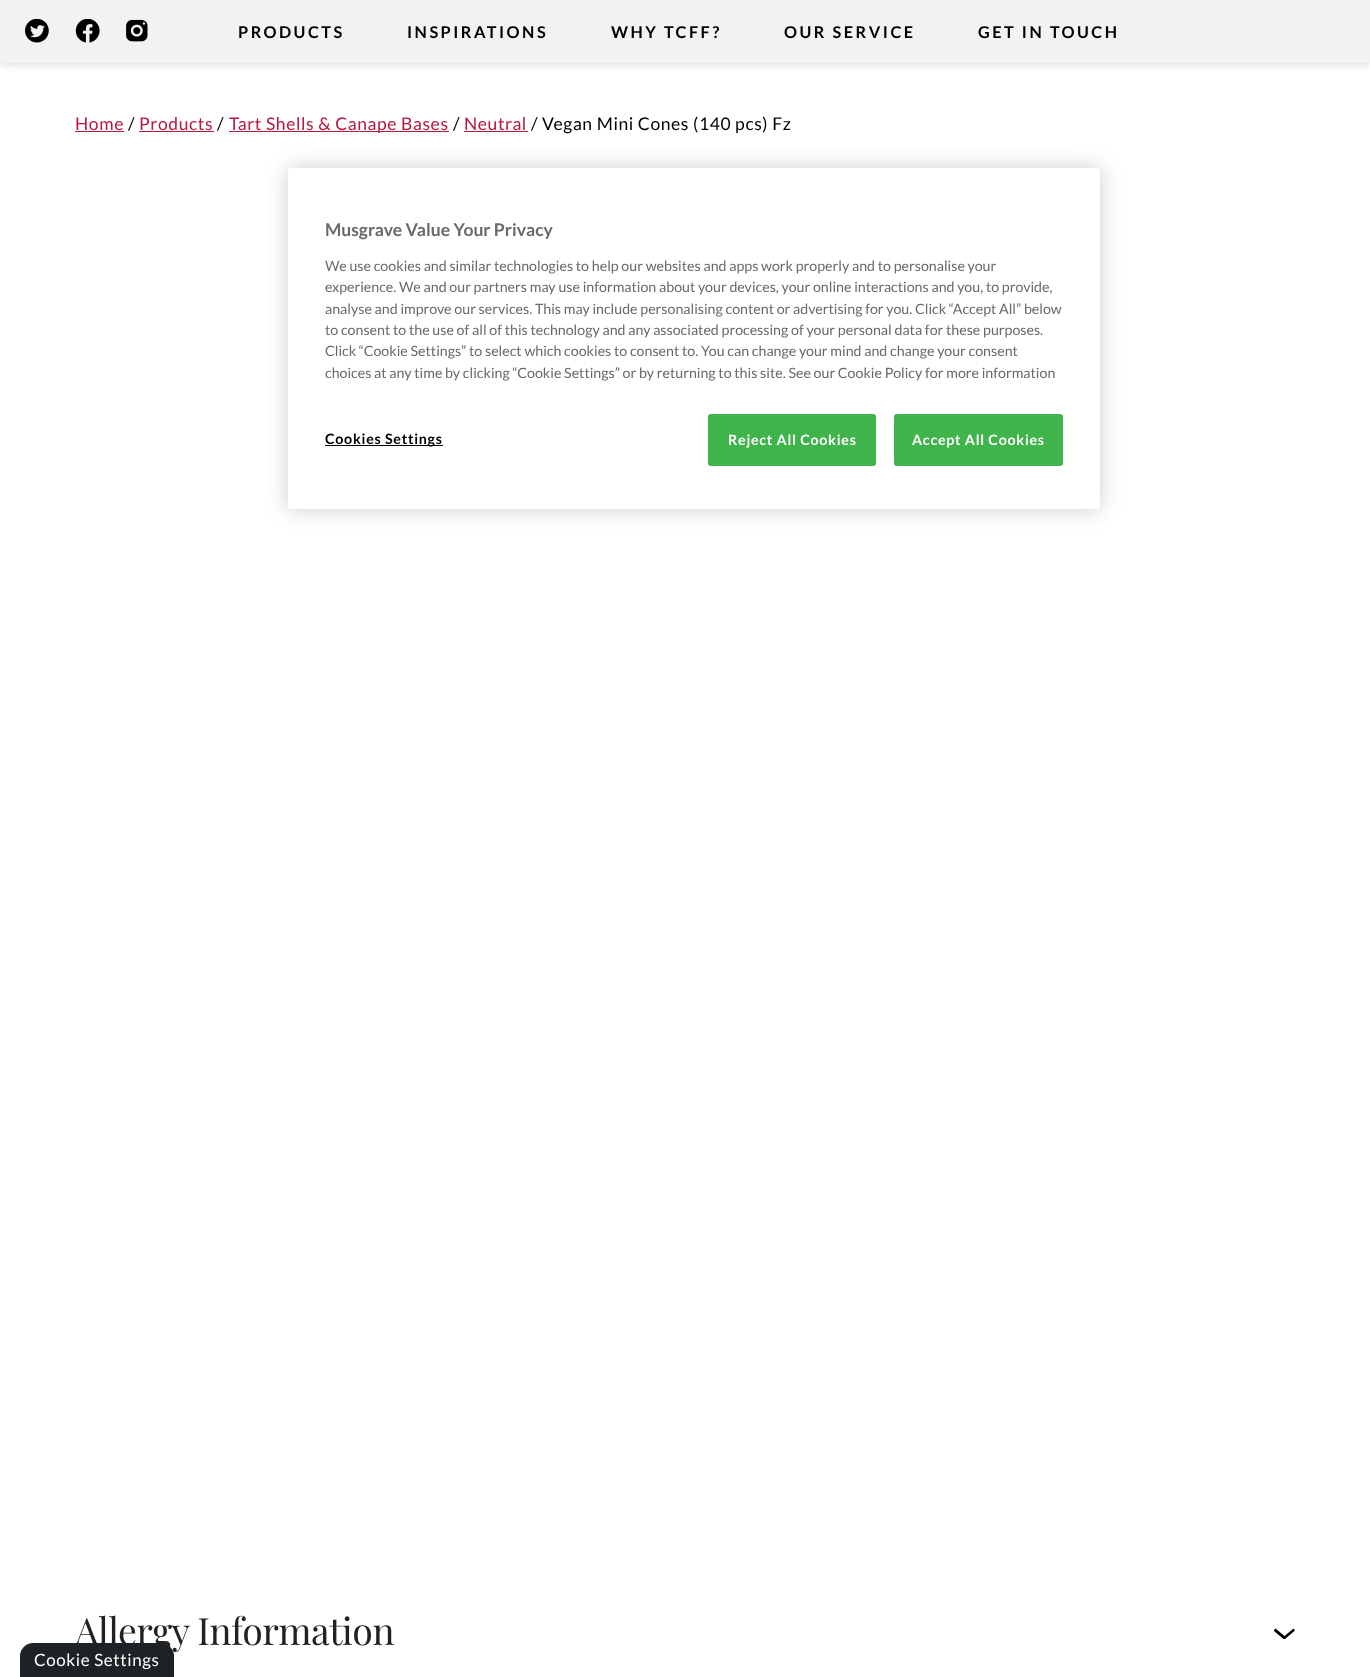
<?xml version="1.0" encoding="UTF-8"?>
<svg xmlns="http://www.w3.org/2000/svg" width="1370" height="1677">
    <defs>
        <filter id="blur1" x="-50%" y="-200%" width="200%" height="500%"><feGaussianBlur stdDeviation="5"/></filter>
        <clipPath id="clip1"><rect x="1274" y="1628" width="21" height="11"/></clipPath>
        <filter id="blur2" x="-50%" y="-200%" width="200%" height="500%"><feGaussianBlur stdDeviation="11"/></filter>
    </defs>
    <rect width="100%" height="100%" fill="#FFFFFF"/>
    <rect x="0" y="0" width="1370" height="63" fill="#000000" fill-opacity="0.2" filter="url(#blur1)"/>
    <rect x="0" y="0" width="1370" height="63" fill="#F2F2F2"/>
    <image x="25" y="19" width="24" height="24" href="img_01.png"/>
    <image x="75" y="19" width="25" height="24" href="img_02.png"/>
    <image x="126" y="19" width="22" height="23" href="img_03.png"/>
    <text x="238" y="38" font-family="Lato" font-size="16.25" font-weight="700" letter-spacing="2.5" fill="#000000">PRODUCTS</text>
    <text x="407" y="38" font-family="Lato" font-size="16.25" font-weight="700" letter-spacing="2.5" fill="#000000">INSPIRATIONS</text>
    <text x="611" y="38" font-family="Lato" font-size="16.25" font-weight="700" letter-spacing="2.5" fill="#000000">WHY TCFF?</text>
    <text x="784" y="38" font-family="Lato" font-size="16.25" font-weight="700" letter-spacing="2.5" fill="#000000">OUR SERVICE</text>
    <text x="978" y="38" font-family="Lato" font-size="16.25" font-weight="700" letter-spacing="2.5" fill="#000000">GET IN TOUCH</text>
    <text x="75" y="130" font-family="Lato" font-size="17.5" letter-spacing="0.6" fill="#B7183D">Home</text>
    <rect x="75" y="131" width="49" height="1" fill="#B7183D"/>
    <text x="128" y="130" font-family="Lato" font-size="17.5" letter-spacing="0.6" fill="#000000">/</text>
    <text x="139" y="130" font-family="Lato" font-size="17.5" letter-spacing="0.6" fill="#B7183D">Products</text>
    <rect x="139" y="131" width="75" height="1" fill="#B7183D"/>
    <text x="217" y="130" font-family="Lato" font-size="17.5" letter-spacing="0.6" fill="#000000">/</text>
    <rect x="229" y="131" width="220" height="1" fill="#B7183D"/>
    <text x="229" y="130" font-family="Lato" font-size="17.5" letter-spacing="0.6" fill="#B7183D">Tart Shells &amp; Canape Bases</text>
    <text x="453" y="130" font-family="Lato" font-size="17.5" letter-spacing="0.6" fill="#000000">/</text>
    <text x="464" y="130" font-family="Lato" font-size="17.5" letter-spacing="0.6" fill="#B7183D">Neutral</text>
    <rect x="464" y="131" width="64" height="1" fill="#B7183D"/>
    <text x="531" y="130" font-family="Lato" font-size="17.5" letter-spacing="0.6" fill="#000000">/ Vegan Mini Cones (140 pcs) Fz</text>
    <text x="75" y="1645" font-family="Playfair Display" font-size="37.5" letter-spacing="-0.6" fill="#1F2224">Allergy Information</text>
    <g clip-path="url(#clip1)">
        <path d="M 1284.5 1639.5 L 1295 1630.5 L 1293.5 1628.5 L 1284.5 1636 L 1275.5 1628.5 L 1273.5 1630.5 L 1283.5 1639 Z" fill="#000000"/>
    </g>
    <rect x="288" y="168" width="812" height="341" rx="3" fill="#000000" fill-opacity="0.2" filter="url(#blur2)"/>
    <rect x="288" y="168" width="812" height="341" rx="3" fill="#FFFFFF"/>
    <text x="325" y="236" font-family="Lato" font-size="17.5" font-weight="700" fill="#696969">Musgrave Value Your Privacy</text>
    <text font-family="Lato" font-size="14.23" fill="#696969">
        <tspan x="325" y="271">We use cookies and similar technologies to help our websites and apps work properly and to personalise your</tspan>
        <tspan x="325" y="292">experience. We and our partners may use information about your devices, your online interactions and you, to provide,</tspan>
        <tspan x="325" y="314">analyse and improve our services. This may include personalising content or advertising for you. Click “Accept All” below</tspan>
        <tspan x="325" y="335">to consent to the use of all of this technology and any associated processing of your personal data for these purposes.</tspan>
        <tspan x="325" y="356">Click “Cookie Settings” to select which cookies to consent to. You can change your mind and change your consent</tspan>
        <tspan x="325" y="378">choices at any time by clicking “Cookie Settings” or by returning to this site. See our Cookie Policy for more information</tspan>
    </text>
    <rect x="325" y="445" width="118" height="1" fill="#000000"/>
    <text x="325" y="444" font-family="Lato" font-size="14.23" font-weight="700" letter-spacing="0.75" fill="#000000">Cookies Settings</text>
    <rect x="708.5" y="414.5" width="167" height="51" rx="2" fill="#3FB44A" stroke="#3FB44A"/>
    <text x="728" y="445" font-family="Lato" font-size="14.23" font-weight="700" letter-spacing="0.75" fill="#FFFFFF">Reject All Cookies</text>
    <rect x="894.5" y="414.5" width="168" height="51" rx="2" fill="#3FB44A" stroke="#3FB44A"/>
    <text x="912" y="445" font-family="Lato" font-size="14.23" font-weight="700" letter-spacing="0.75" fill="#FFFFFF">Accept All Cookies</text>
    <path d="M 33 1643.5 H 161 C 168 1643.5 173.5 1649 173.5 1656 V 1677.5 H 20.5 V 1656 C 20.5 1649 26 1643.5 33 1643.5 Z" fill="#1F2224" stroke="#1F2224"/>
    <text x="34" y="1666" font-family="Lato" font-size="17" letter-spacing="0.6" fill="#FFFFFF">Cookie Settings</text>
</svg>
